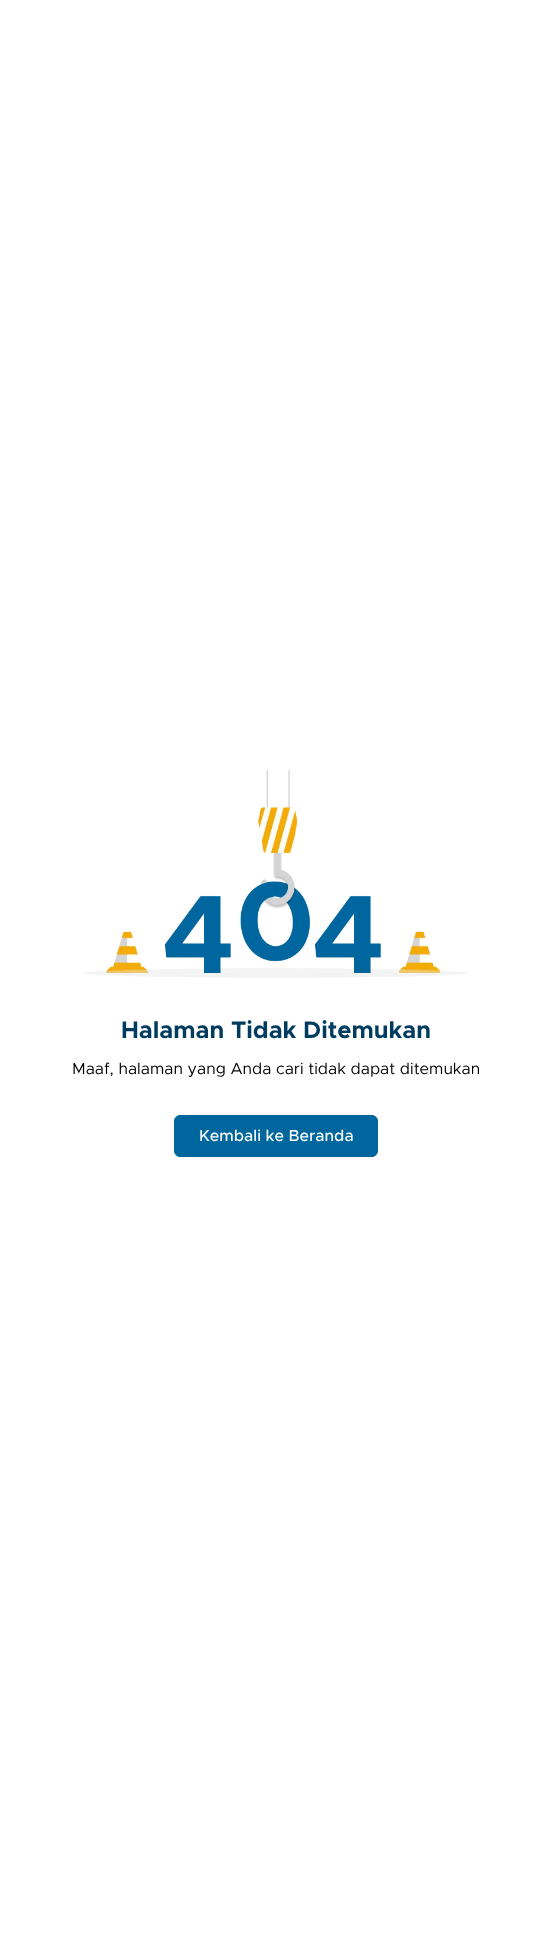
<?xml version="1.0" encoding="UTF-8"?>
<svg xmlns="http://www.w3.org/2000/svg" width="552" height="1959">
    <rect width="100%" height="100%" fill="#FFFFFF"/>
    <image x="84" y="770" width="384" height="208" href="img_01.png"/>
    <text x="121" y="1038" font-family="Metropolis" font-size="24" font-weight="700" fill="#003C5F">Halaman Tidak Ditemukan</text>
    <text x="72" y="1074" font-family="Metropolis" font-size="16" fill="#000000">Maaf, halaman yang Anda cari tidak dapat ditemukan</text>
    <rect x="174.5" y="1115.5" width="203" height="41" rx="5.5" fill="#00669E" stroke="#00669E"/>
    <text x="199" y="1141" font-family="Metropolis" font-size="16" font-weight="500" fill="#FFFFFF">Kembali ke Beranda</text>
</svg>
